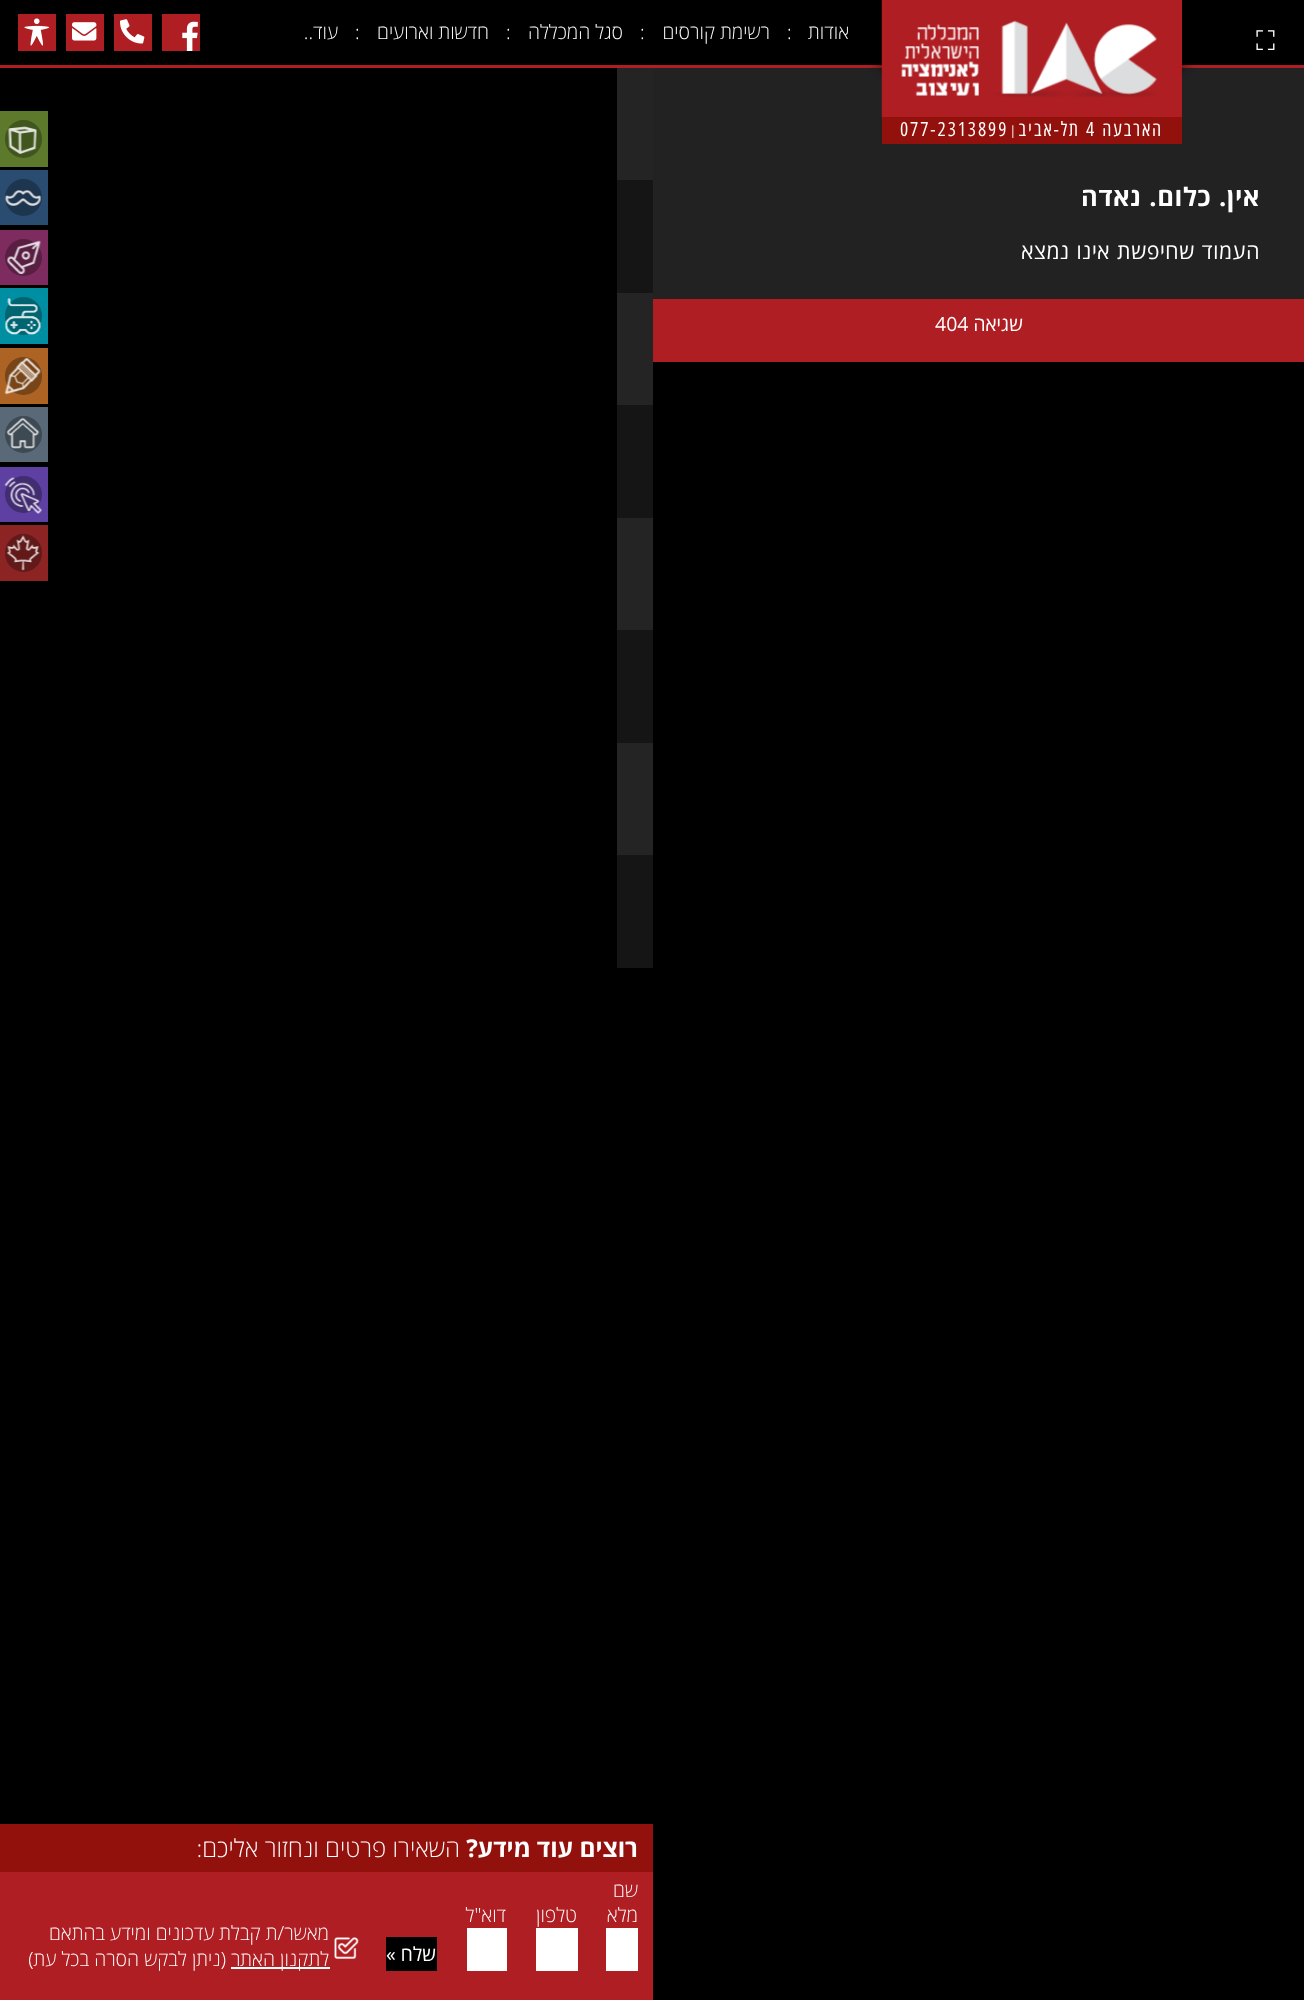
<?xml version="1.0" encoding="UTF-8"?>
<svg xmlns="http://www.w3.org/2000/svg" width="1304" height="2000">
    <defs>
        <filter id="blur1" x="-50%" y="-200%" width="200%" height="500%"><feGaussianBlur stdDeviation="7.5"/></filter>
    </defs>
    <rect width="100%" height="100%" fill="#000000"/>
    <text x="1256" y="50" font-family="FreeSans" font-size="27" fill="#FFFFFF">⛶</text>
    <text x="849" y="39" font-family="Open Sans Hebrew" font-size="19.5" font-weight="300" direction="rtl" fill="#FFFFFF">אודות</text>
    <text x="787" y="39" font-family="Open Sans Hebrew" font-size="19.5" font-weight="300" fill="#FFFFFF">:</text>
    <text x="770" y="39" font-family="Open Sans Hebrew" font-size="19.5" font-weight="300" direction="rtl" fill="#FFFFFF">רשימת קורסים</text>
    <text x="640" y="39" font-family="Open Sans Hebrew" font-size="19.5" font-weight="300" fill="#FFFFFF">:</text>
    <text x="623" y="39" font-family="Open Sans Hebrew" font-size="19.5" font-weight="300" direction="rtl" fill="#FFFFFF">סגל המכללה</text>
    <text x="506" y="39" font-family="Open Sans Hebrew" font-size="19.5" font-weight="300" fill="#FFFFFF">:</text>
    <text x="489" y="39" font-family="Open Sans Hebrew" font-size="19.5" font-weight="300" direction="rtl" fill="#FFFFFF">חדשות וארועים</text>
    <text x="355" y="39" font-family="Open Sans Hebrew" font-size="19.5" font-weight="300" fill="#FFFFFF">:</text>
    <text x="338" y="39" font-family="Open Sans Hebrew" font-size="19.5" font-weight="300" direction="rtl" fill="#FFFFFF">עוד..</text>
    <rect x="162" y="14" width="38" height="37" fill="#AF1E23"/>
    <image x="182" y="21" width="16" height="30" href="img_01.png"/>
    <rect x="114" y="14" width="38" height="37" fill="#AF1E23"/>
    <image x="120" y="19" width="25" height="25" href="img_02.png"/>
    <rect x="66" y="14" width="38" height="37" fill="#AF1E23"/>
    <image x="72" y="22" width="25" height="19" href="img_03.png"/>
    <rect x="18" y="14" width="38" height="37" fill="#AF1E23"/>
    <image x="24" y="18" width="26" height="28" href="img_04.png"/>
    <rect x="0" y="65" width="1304" height="3" fill="#AF1E23"/>
    <rect x="653" y="68" width="651" height="231" fill="#222222"/>
    <rect x="882" y="0" width="300" height="68" fill="#000000" filter="url(#blur1)"/>
    <rect x="882" y="0" width="300" height="117" fill="#AF1E23"/>
    <image x="881" y="0" width="276" height="117" href="img_05.png"/>
    <rect x="882" y="117" width="300" height="27" fill="#92110C"/>
    <text x="1163" y="136" font-family="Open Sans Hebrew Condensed" font-size="19.5" letter-spacing="1.9" direction="rtl" fill="#FFFFFF">הארבעה</text>
    <text x="1086" y="136" font-family="Open Sans Hebrew Condensed" font-size="19.5" letter-spacing="1.9" fill="#FFFFFF">4</text>
    <text x="1080" y="136" font-family="Open Sans Hebrew Condensed" font-size="19.5" letter-spacing="1.9" direction="rtl" fill="#FFFFFF">תל-אביב</text>
    <text x="1010" y="135" font-family="Open Sans Hebrew Condensed" font-size="13" letter-spacing="1.9" fill="#FFFFFF">|</text>
    <text x="900" y="136" font-family="Open Sans Hebrew Condensed" font-size="19.5" letter-spacing="1.9" fill="#FFFFFF">077-2313899</text>
    <text x="1260" y="206" word-spacing="0.5" font-family="Open Sans Hebrew" font-size="25.5" font-weight="700" letter-spacing="0.6" direction="rtl" fill="#FFFFFF">אין. כלום. נאדה</text>
    <text x="1260" y="259" word-spacing="0.5" font-family="Open Sans Hebrew" font-size="21.5" letter-spacing="0.6" direction="rtl" fill="#FFFFFF">העמוד שחיפשת אינו נמצא</text>
    <rect x="653" y="299" width="651" height="63" fill="#AF1E23"/>
    <text x="1023" y="331" font-family="Open Sans Hebrew" font-size="19.5" direction="rtl" fill="#FFFFFF">שגיאה</text>
    <text x="935" y="331" font-family="Open Sans Hebrew" font-size="19.5" fill="#FFFFFF">404</text>
    <rect x="617" y="68" width="36" height="112" fill="#242424"/>
    <rect x="617" y="180" width="36" height="113" fill="#151515"/>
    <rect x="617" y="293" width="36" height="112" fill="#242424"/>
    <rect x="617" y="405" width="36" height="113" fill="#151515"/>
    <rect x="617" y="518" width="36" height="112" fill="#242424"/>
    <rect x="617" y="630" width="36" height="113" fill="#151515"/>
    <rect x="617" y="743" width="36" height="112" fill="#242424"/>
    <rect x="617" y="855" width="36" height="113" fill="#151515"/>
    <rect x="0" y="111" width="48" height="56" fill="#5D792B"/>
    <rect x="5" y="120" width="37" height="38" rx="18.5" fill="#41551E"/>
    <image x="7" y="126" width="30" height="28" href="img_06.png"/>
    <rect x="0" y="170" width="48" height="55" fill="#2B4C71"/>
    <circle cx="23.5" cy="197.5" r="18.5" fill="#1E354F"/>
    <image x="5" y="190" width="37" height="16" href="img_07.png"/>
    <rect x="0" y="230" width="48" height="55" fill="#7E2C60"/>
    <circle cx="23.5" cy="257.5" r="18.5" fill="#581F43"/>
    <image x="6" y="240" width="35" height="34" href="img_08.png"/>
    <rect x="0" y="288" width="48" height="56" fill="#008FA2"/>
    <rect x="5" y="297" width="37" height="38" rx="18.5" fill="#006471"/>
    <image x="4" y="298" width="37" height="37" href="img_09.png"/>
    <rect x="0" y="348" width="48" height="56" fill="#AC6324"/>
    <rect x="5" y="357" width="37" height="38" rx="18.5" fill="#784519"/>
    <image x="4" y="357" width="37" height="38" href="img_10.png"/>
    <rect x="0" y="407" width="48" height="55" fill="#596977"/>
    <circle cx="23.5" cy="434.5" r="18.5" fill="#3E4A53"/>
    <image x="6" y="417" width="34" height="32" href="img_11.png"/>
    <rect x="0" y="467" width="48" height="55" fill="#5E3FA2"/>
    <circle cx="23.5" cy="494.5" r="18.5" fill="#422C71"/>
    <image x="4" y="477" width="38" height="37" href="img_12.png"/>
    <rect x="0" y="525" width="48" height="56" fill="#8C2424"/>
    <rect x="5" y="534" width="37" height="38" rx="18.5" fill="#621919"/>
    <image x="6" y="535" width="34" height="36" href="img_13.png"/>
    <rect x="0" y="1872" width="653" height="128" fill="#AF1E23"/>
    <rect x="0" y="1824" width="653" height="48" fill="#92110C"/>
    <text x="638" y="1857" font-family="Open Sans Hebrew" font-size="24.4" font-weight="700" direction="rtl" fill="#FFFFFF">רוצים עוד מידע?</text>
    <text x="460" y="1857" font-family="Open Sans Hebrew" font-size="24.4" font-weight="300" direction="rtl" fill="#FFFFFF">השאירו פרטים ונחזור אליכם:</text>
    <text font-family="Open Sans Hebrew" font-size="19.5" font-weight="300" direction="rtl" fill="#FFFFFF">
        <tspan x="638" y="1897">שם</tspan>
        <tspan x="638" y="1922">מלא</tspan>
    </text>
    <rect x="606" y="1928" width="32" height="43" fill="#FFFFFF"/>
    <text x="577" y="1922" font-family="Open Sans Hebrew" font-size="19.5" font-weight="300" direction="rtl" fill="#FFFFFF">טלפון</text>
    <rect x="536" y="1928" width="42" height="43" fill="#FFFFFF"/>
    <text x="506" y="1922" font-family="Open Sans Hebrew" font-size="19.5" font-weight="300" direction="rtl" fill="#FFFFFF">דוא"ל</text>
    <rect x="467" y="1928" width="40" height="43" fill="#FFFFFF"/>
    <rect x="386" y="1937" width="51" height="34" fill="#000000"/>
    <text x="436" y="1961" font-family="Open Sans Hebrew" font-size="19.5" direction="rtl" fill="#FFFFFF">שלח »</text>
    <image x="334" y="1937" width="25" height="22" href="img_14.png"/>
    <text x="329" y="1940" font-family="Open Sans Hebrew" font-size="19.5" font-weight="300" direction="rtl" fill="#FFFFFF">מאשר/ת קבלת עדכונים ומידע בהתאם</text>
    <rect x="231" y="1967" width="99" height="2" fill="#FFFFFF"/>
    <text x="329" y="1966" font-family="Open Sans Hebrew" font-size="19.5" font-weight="300" direction="rtl" fill="#FFFFFF">לתקנון האתר</text>
    <text x="226" y="1966" font-family="Open Sans Hebrew" font-size="19.5" font-weight="300" direction="rtl" fill="#FFFFFF">(ניתן לבקש הסרה בכל עת)</text>
</svg>
